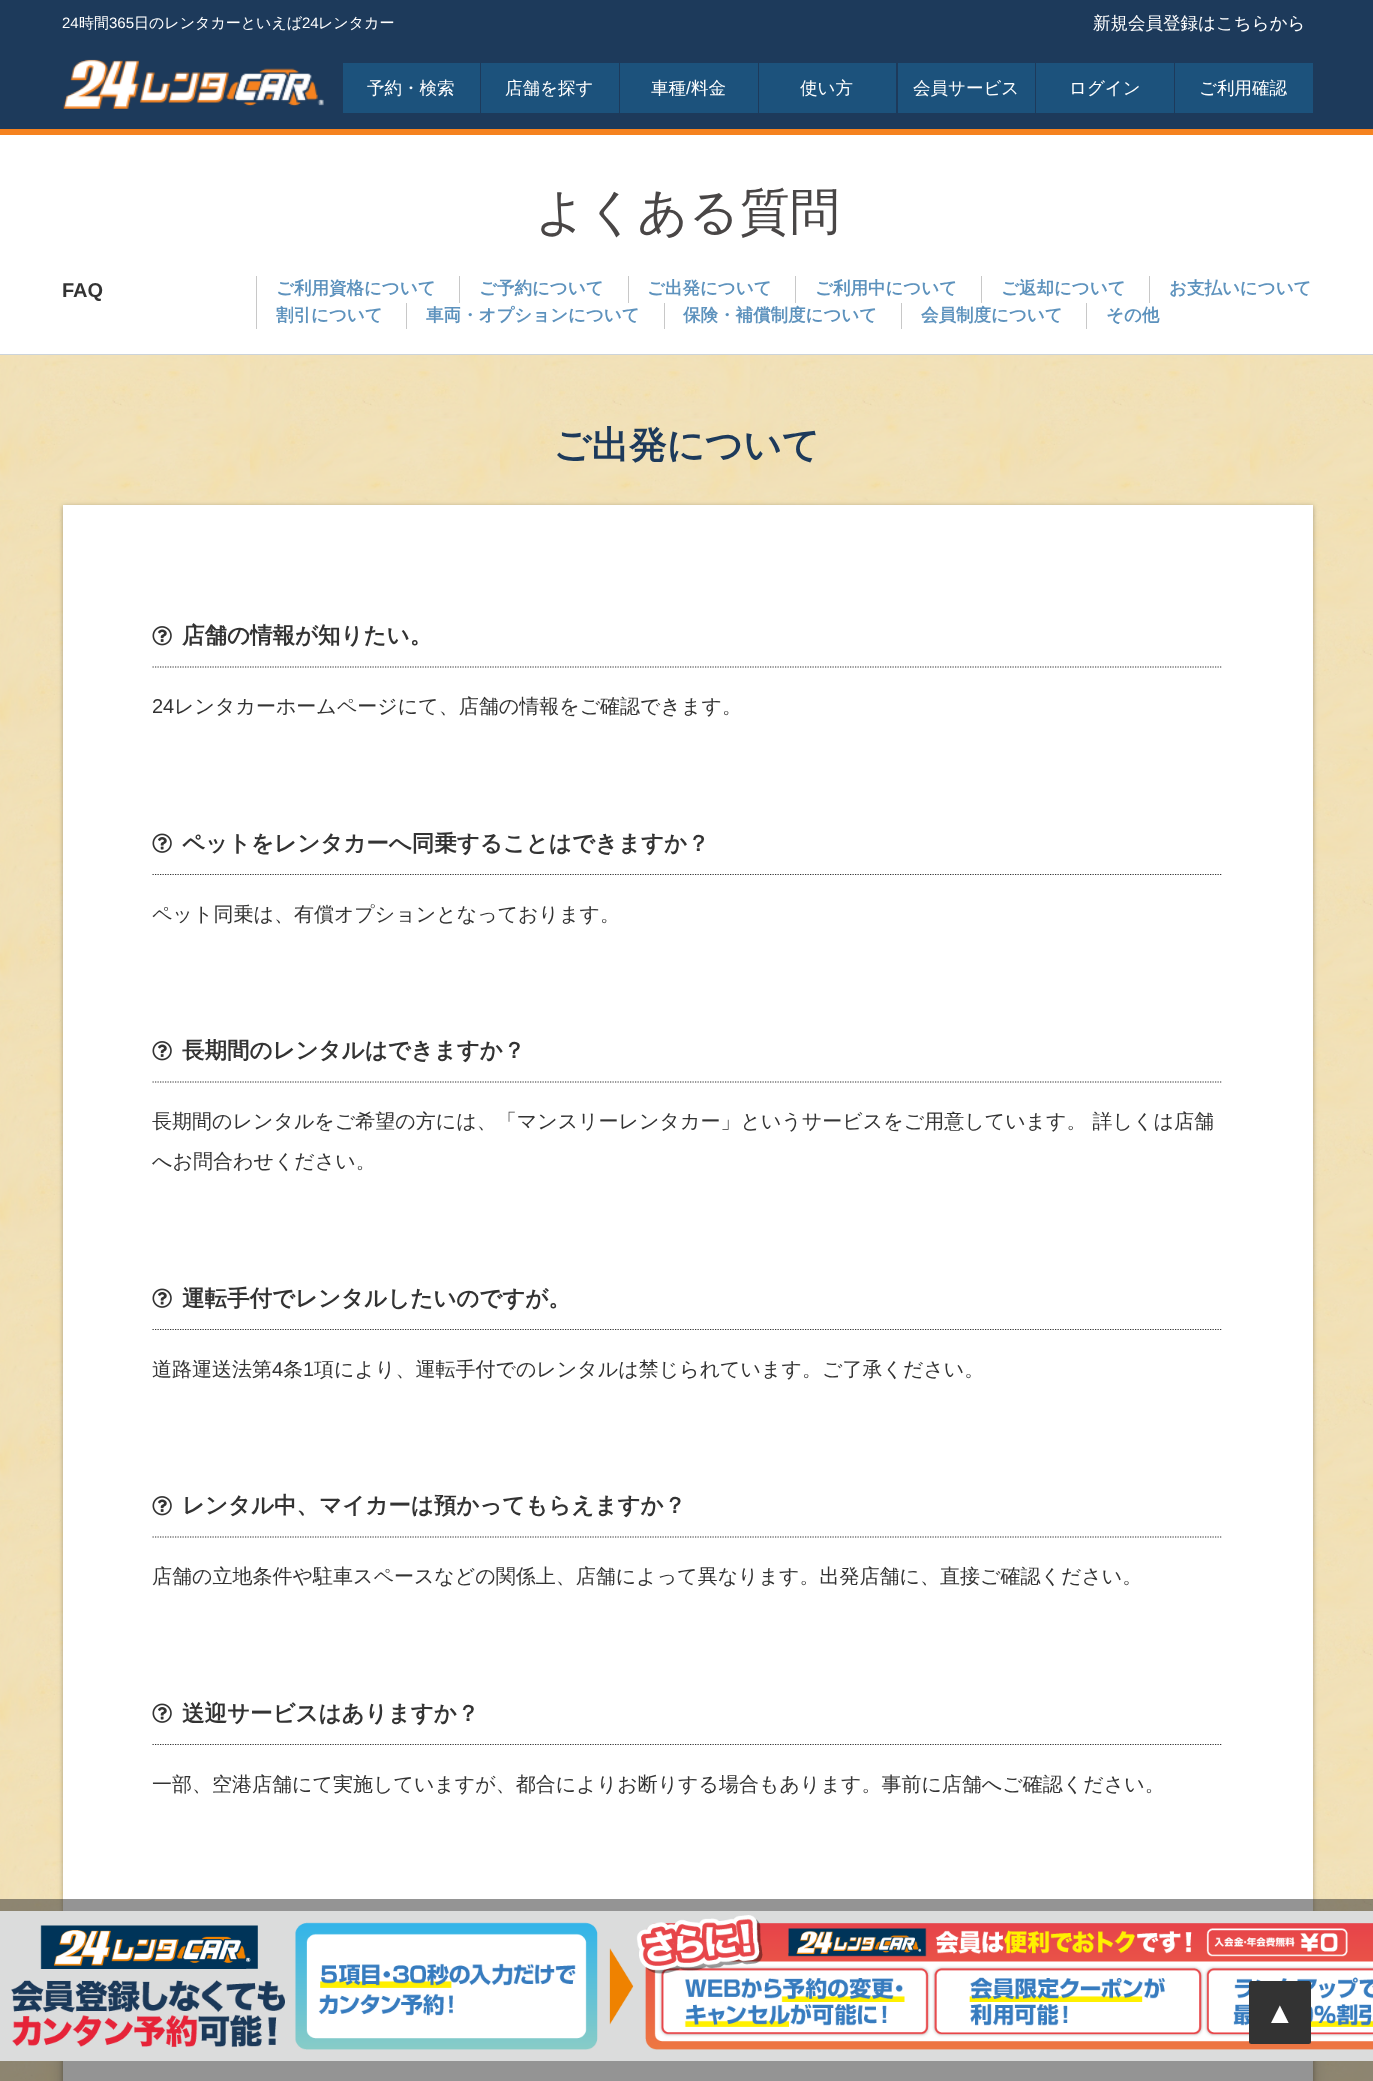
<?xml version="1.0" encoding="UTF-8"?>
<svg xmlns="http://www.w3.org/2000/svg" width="1373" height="2081">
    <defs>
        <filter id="blur1" x="-50%" y="-200%" width="200%" height="500%"><feGaussianBlur stdDeviation="2.5"/></filter>
        <filter id="blur2" x="-50%" y="-200%" width="200%" height="500%"><feGaussianBlur stdDeviation="12.5"/></filter>
    </defs>
    <rect width="100%" height="100%" fill="#FFFFFF"/>
    <image x="0" y="355" width="1373" height="1726" href="img_01.png"/>
    <rect x="0" y="0" width="1373" height="129" fill="#1D3A5B"/>
    <rect x="0" y="129" width="1373" height="6" fill="#F5821F"/>
    <text x="62" y="28" font-family="Liberation Sans" font-size="15" fill="#FFFFFF">24</text>
    <text x="79" y="28" font-family="WenQuanYi Zen Hei" font-size="15" font-weight="500" fill="#FFFFFF">時間</text>
    <text x="109" y="28" font-family="Liberation Sans" font-size="15" fill="#FFFFFF">365</text>
    <text x="134" y="28" font-family="WenQuanYi Zen Hei" font-size="15" font-weight="500" fill="#FFFFFF">日のレンタカーといえば</text>
    <text x="302" y="28" font-family="Liberation Sans" font-size="15" fill="#FFFFFF">24</text>
    <text x="318" y="28" font-family="WenQuanYi Zen Hei" font-size="15" font-weight="500" fill="#FFFFFF">レンタカー</text>
    <text x="1093" y="29" font-family="WenQuanYi Zen Hei" font-size="17.5" font-weight="500" fill="#FFFFFF">新規会員登録はこちらから</text>
    <image x="63" y="59" width="261" height="50" href="img_02.png"/>
    <rect x="343" y="63" width="137" height="50" fill="#1C527C"/>
    <text x="367" y="94" font-family="WenQuanYi Zen Hei" font-size="17.5" font-weight="500" fill="#FFFFFF">予約・検索</text>
    <rect x="481" y="63" width="138" height="50" fill="#1C527C"/>
    <text x="505" y="94" font-family="WenQuanYi Zen Hei" font-size="17.5" font-weight="500" fill="#FFFFFF">店舗を探す</text>
    <rect x="620" y="63" width="138" height="50" fill="#1C527C"/>
    <text x="651" y="94" font-family="WenQuanYi Zen Hei" font-size="17.5" font-weight="500" fill="#FFFFFF">車種</text>
    <text x="686" y="94" font-family="Liberation Sans" font-size="17.5" fill="#FFFFFF">/</text>
    <text x="691" y="94" font-family="WenQuanYi Zen Hei" font-size="17.5" font-weight="500" fill="#FFFFFF">料金</text>
    <rect x="759" y="63" width="137" height="50" fill="#1C527C"/>
    <text x="800" y="94" font-family="WenQuanYi Zen Hei" font-size="17.5" font-weight="500" fill="#FFFFFF">使い方</text>
    <rect x="898" y="63" width="137" height="50" fill="#1C527C"/>
    <text x="913" y="94" font-family="WenQuanYi Zen Hei" font-size="17.5" font-weight="500" fill="#FFFFFF">会員サービス</text>
    <rect x="1036" y="63" width="138" height="50" fill="#1C527C"/>
    <text x="1069" y="94" font-family="WenQuanYi Zen Hei" font-size="17.5" font-weight="500" fill="#FFFFFF">ログイン</text>
    <rect x="1175" y="63" width="138" height="50" fill="#1C527C"/>
    <text x="1199" y="94" font-family="WenQuanYi Zen Hei" font-size="17.5" font-weight="500" fill="#FFFFFF">ご利用確認</text>
    <rect x="0" y="354" width="1373" height="1" fill="#CCD4DB"/>
    <text x="535" y="229" font-family="WenQuanYi Zen Hei" font-size="50" font-weight="500" fill="#494646">よくある質問</text>
    <text x="62" y="297" font-family="Liberation Sans" font-size="20" font-weight="700" fill="#333333">FAQ</text>
    <rect x="256" y="276" width="1" height="53" fill="#C8C8C8"/>
    <text x="276" y="294" font-family="WenQuanYi Zen Hei" font-size="17.5" font-weight="700" fill="#5D92BD">ご利用資格について</text>
    <rect x="459" y="276" width="1" height="27" fill="#C8C8C8"/>
    <text x="479" y="294" font-family="WenQuanYi Zen Hei" font-size="17.5" font-weight="700" fill="#5D92BD">ご予約について</text>
    <rect x="628" y="276" width="1" height="27" fill="#C8C8C8"/>
    <text x="647" y="294" font-family="WenQuanYi Zen Hei" font-size="17.5" font-weight="700" fill="#5D92BD">ご出発について</text>
    <rect x="795" y="276" width="1" height="27" fill="#C8C8C8"/>
    <text x="815" y="294" font-family="WenQuanYi Zen Hei" font-size="17.5" font-weight="700" fill="#5D92BD">ご利用中について</text>
    <rect x="981" y="276" width="1" height="27" fill="#C8C8C8"/>
    <text x="1001" y="294" font-family="WenQuanYi Zen Hei" font-size="17.5" font-weight="700" fill="#5D92BD">ご返却について</text>
    <rect x="1149" y="276" width="1" height="27" fill="#C8C8C8"/>
    <text x="1169" y="294" font-family="WenQuanYi Zen Hei" font-size="17.5" font-weight="700" fill="#5D92BD">お支払いについて</text>
    <text x="276" y="321" font-family="WenQuanYi Zen Hei" font-size="17.5" font-weight="700" fill="#5D92BD">割引について</text>
    <rect x="406" y="303" width="1" height="26" fill="#C8C8C8"/>
    <text x="426" y="321" font-family="WenQuanYi Zen Hei" font-size="17.5" font-weight="700" fill="#5D92BD">車両・オプションについて</text>
    <rect x="664" y="303" width="1" height="26" fill="#C8C8C8"/>
    <text x="683" y="321" font-family="WenQuanYi Zen Hei" font-size="17.5" font-weight="700" fill="#5D92BD">保険・補償制度について</text>
    <rect x="901" y="303" width="1" height="26" fill="#C8C8C8"/>
    <text x="921" y="321" font-family="WenQuanYi Zen Hei" font-size="17.5" font-weight="700" fill="#5D92BD">会員制度について</text>
    <rect x="1086" y="303" width="1" height="26" fill="#C8C8C8"/>
    <text x="1106" y="321" font-family="WenQuanYi Zen Hei" font-size="17.5" font-weight="700" fill="#5D92BD">その他</text>
    <text x="553" y="458" font-family="WenQuanYi Zen Hei" font-size="37.5" font-weight="700" fill="#1D3A5B">ご出発について</text>
    <rect x="63" y="506" width="1250" height="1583" fill="#000000" fill-opacity="0.3" filter="url(#blur1)"/>
    <rect x="75" y="1986" width="1225" height="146" rx="13" fill="#000000" fill-opacity="0.8" filter="url(#blur2)"/>
    <rect x="63" y="505" width="1250" height="1576" fill="#FFFFFF"/>
    <path d="M 152.5 667 H 1222.5" fill="none" stroke="#333333" stroke-width="1.2" stroke-dasharray="1.25 1.25"/>
    <image x="152" y="626" width="20" height="20" href="img_03.png"/>
    <text x="182" y="643" font-family="WenQuanYi Zen Hei" font-size="22.5" font-weight="700" fill="#333333">店舗の情報が知りたい。</text>
    <text x="152" y="713" font-family="Liberation Sans" font-size="20" fill="#333333">24</text>
    <text x="174" y="713" font-family="WenQuanYi Zen Hei" font-size="20" font-weight="500" fill="#333333">レンタカーホームページにて、店舗の情報をご確認できます。</text>
    <path d="M 152.5 874.5 H 1222.5" fill="none" stroke="#333333" stroke-width="1.2" stroke-dasharray="1.25 1.25"/>
    <image x="152" y="833" width="20" height="20" href="img_04.png"/>
    <text x="182" y="851" font-family="WenQuanYi Zen Hei" font-size="22.5" font-weight="700" fill="#333333">ペットをレンタカーへ同乗することはできますか？</text>
    <text x="152" y="921" font-family="WenQuanYi Zen Hei" font-size="20" font-weight="500" fill="#333333">ペット同乗は、有償オプションとなっております。</text>
    <path d="M 152.5 1082 H 1222.5" fill="none" stroke="#333333" stroke-width="1.2" stroke-dasharray="1.25 1.25"/>
    <image x="152" y="1041" width="20" height="20" href="img_03.png"/>
    <text x="182" y="1058" font-family="WenQuanYi Zen Hei" font-size="22.5" font-weight="700" fill="#333333">長期間のレンタルはできますか？</text>
    <text x="152" y="1128" font-family="WenQuanYi Zen Hei" font-size="20" font-weight="500" fill="#333333">長期間のレンタルをご希望の方には、「マンスリーレンタカー」というサービスをご用意しています。 詳しくは店舗</text>
    <text x="152" y="1168" font-family="WenQuanYi Zen Hei" font-size="20" font-weight="500" fill="#333333">へお問合わせください。</text>
    <path d="M 152.5 1329.5 H 1222.5" fill="none" stroke="#333333" stroke-width="1.2" stroke-dasharray="1.25 1.25"/>
    <image x="152" y="1288" width="20" height="20" href="img_04.png"/>
    <text x="182" y="1306" font-family="WenQuanYi Zen Hei" font-size="22.5" font-weight="700" fill="#333333">運転手付でレンタルしたいのですが。</text>
    <text x="152" y="1376" font-family="WenQuanYi Zen Hei" font-size="20" font-weight="500" fill="#333333">道路運送法第</text>
    <text x="272" y="1376" font-family="Liberation Sans" font-size="20" fill="#333333">4</text>
    <text x="283" y="1376" font-family="WenQuanYi Zen Hei" font-size="20" font-weight="500" fill="#333333">条</text>
    <text x="303" y="1376" font-family="Liberation Sans" font-size="20" fill="#333333">1</text>
    <text x="314" y="1376" font-family="WenQuanYi Zen Hei" font-size="20" font-weight="500" fill="#333333">項により、運転手付でのレンタルは禁じられています。ご了承ください。</text>
    <path d="M 152.5 1537 H 1222.5" fill="none" stroke="#333333" stroke-width="1.2" stroke-dasharray="1.25 1.25"/>
    <image x="152" y="1496" width="20" height="20" href="img_03.png"/>
    <text x="182" y="1513" font-family="WenQuanYi Zen Hei" font-size="22.5" font-weight="700" fill="#333333">レンタル中、マイカーは預かってもらえますか？</text>
    <text x="152" y="1583" font-family="WenQuanYi Zen Hei" font-size="20" font-weight="500" fill="#333333">店舗の立地条件や駐車スペースなどの関係上、店舗によって異なります。出発店舗に、直接ご確認ください。</text>
    <path d="M 152.5 1744.5 H 1222.5" fill="none" stroke="#333333" stroke-width="1.2" stroke-dasharray="1.25 1.25"/>
    <image x="152" y="1703" width="20" height="20" href="img_04.png"/>
    <text x="182" y="1721" font-family="WenQuanYi Zen Hei" font-size="22.5" font-weight="700" fill="#333333">送迎サービスはありますか？</text>
    <text x="152" y="1791" font-family="WenQuanYi Zen Hei" font-size="20" font-weight="500" fill="#333333">一部、空港店舗にて実施していますが、都合によりお断りする場合もあります。事前に店舗へご確認ください。</text>
    <rect x="0" y="1899" width="1373" height="182" fill="#292929" fill-opacity="0.5"/>
    <image x="0" y="1911" width="1373" height="150" href="img_05.png"/>
    <rect x="1249" y="1981" width="62" height="63" rx="2.5" fill="#333333"/>
    <text x="1265" y="2023" font-family="Liberation Sans" font-size="30" fill="#FFFFFF">▲</text>
</svg>
